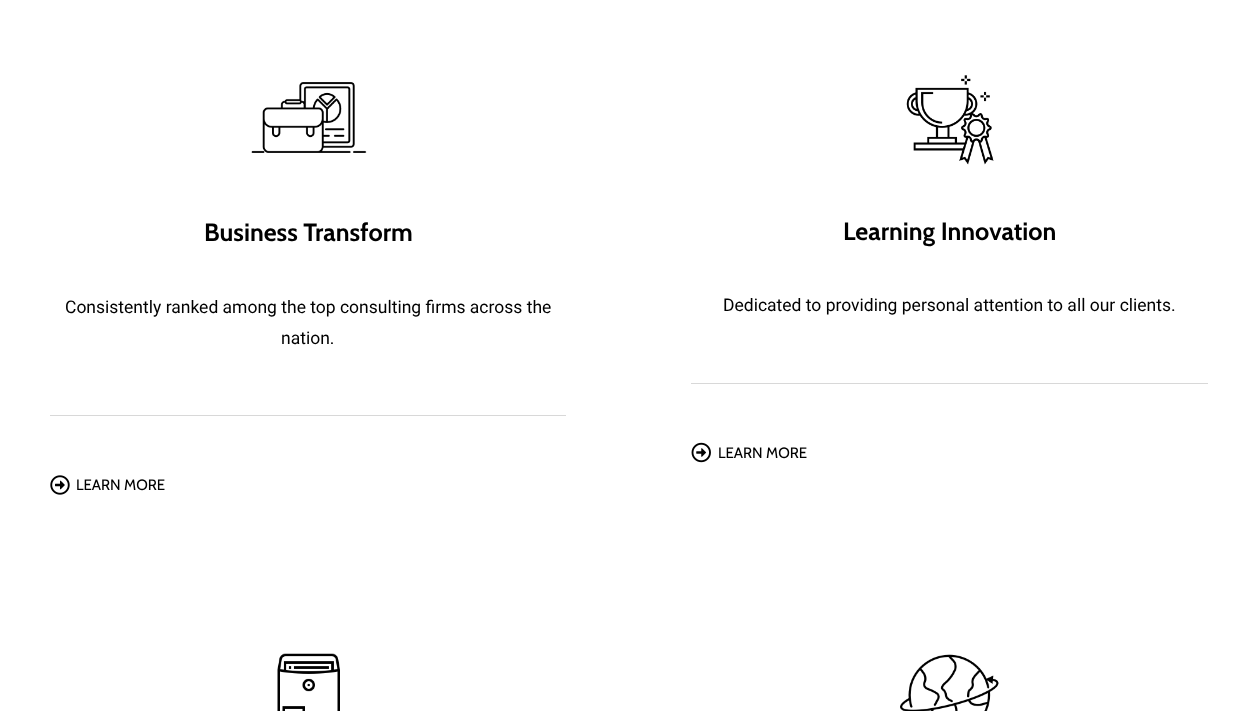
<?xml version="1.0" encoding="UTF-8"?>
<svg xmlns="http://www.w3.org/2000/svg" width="1257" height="711">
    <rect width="100%" height="100%" fill="#FFFFFF"/>
    <image x="251" y="82" width="116" height="71" href="img_01.png"/>
    <text x="204" y="241" font-family="Cabin" font-size="25" font-weight="700" fill="#000000">Business Transform</text>
    <text x="65" y="313" font-family="Roboto" font-size="17.5" fill="#000000">Consistently ranked among the top consulting firms across the</text>
    <text x="281" y="344" font-family="Roboto" font-size="17.5" fill="#000000">nation.</text>
    <rect x="50" y="415" width="516" height="1" fill="#D8D8D8"/>
    <image x="50" y="475" width="20" height="20" href="img_02.png"/>
    <text x="76" y="490" font-family="Cabin" font-size="15" fill="#000000">LEARN MORE</text>
    <image x="906" y="75" width="88" height="90" href="img_03.png"/>
    <text x="843" y="240" font-family="Cabin" font-size="25" font-weight="700" fill="#000000">Learning Innovation</text>
    <text x="723" y="311" font-family="Roboto" font-size="17.5" fill="#000000">Dedicated to providing personal attention to all our clients.</text>
    <rect x="691" y="383" width="517" height="1" fill="#D8D8D8"/>
    <image x="691" y="442" width="20" height="21" href="img_04.png"/>
    <text x="718" y="458" font-family="Cabin" font-size="15" fill="#000000">LEARN MORE</text>
    <image x="277" y="653" width="63" height="58" href="img_05.png"/>
    <image x="900" y="654" width="99" height="57" href="img_06.png"/>
</svg>
